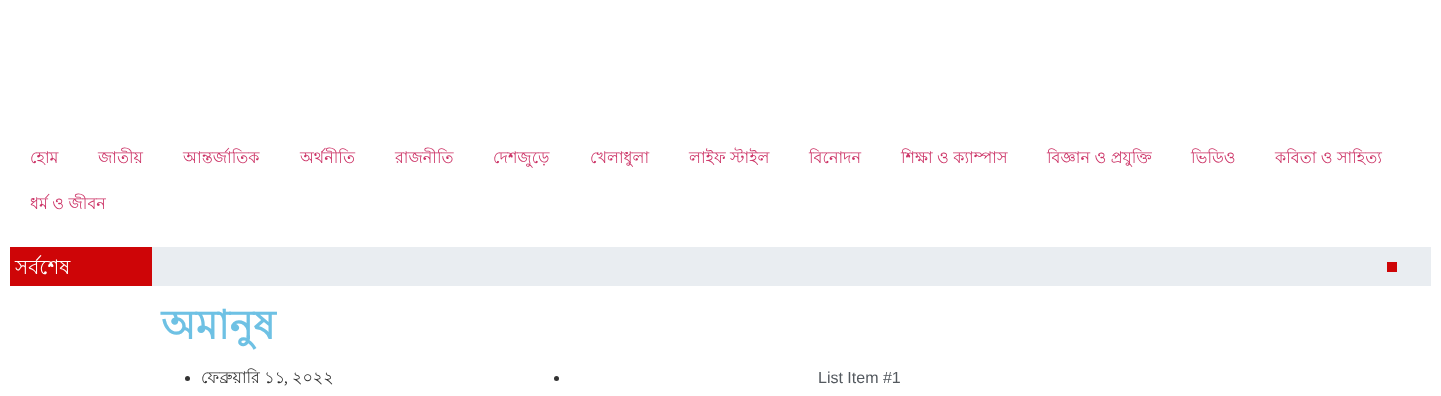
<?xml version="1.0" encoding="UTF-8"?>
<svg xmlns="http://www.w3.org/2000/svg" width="1441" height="396">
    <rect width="100%" height="100%" fill="#FFFFFF"/>
    <text x="30" y="163" font-family="Lohit Bengali" font-size="16" fill="#CC3366">হোম</text>
    <text x="98" y="163" font-family="Lohit Bengali" font-size="16" fill="#CC3366">জাতীয়</text>
    <text x="183" y="163" font-family="Lohit Bengali" font-size="16" fill="#CC3366">আন্তর্জাতিক</text>
    <text x="300" y="163" font-family="Lohit Bengali" font-size="16" fill="#CC3366">অর্থনীতি</text>
    <text x="395" y="163" font-family="Lohit Bengali" font-size="16" fill="#CC3366">রাজনীতি</text>
    <text x="493" y="163" font-family="Lohit Bengali" font-size="16" fill="#CC3366">দেশজুড়ে</text>
    <text x="590" y="163" font-family="Lohit Bengali" font-size="16" fill="#CC3366">খেলাধুলা</text>
    <text x="689" y="163" font-family="Lohit Bengali" font-size="16" fill="#CC3366">লাইফ স্টাইল</text>
    <text x="809" y="163" font-family="Lohit Bengali" font-size="16" fill="#CC3366">বিনোদন</text>
    <text x="901" y="163" font-family="Lohit Bengali" font-size="16" fill="#CC3366">শিক্ষা ও ক্যাম্পাস</text>
    <text x="1047" y="163" font-family="Lohit Bengali" font-size="16" fill="#CC3366">বিজ্ঞান ও প্রযুক্তি</text>
    <text x="1191" y="163" font-family="Lohit Bengali" font-size="16" fill="#CC3366">ভিডিও</text>
    <text x="1275" y="163" font-family="Lohit Bengali" font-size="16" fill="#CC3366">কবিতা ও সাহিত্য</text>
    <text x="30" y="209" font-family="Lohit Bengali" font-size="16" fill="#CC3366">ধর্ম ও জীবন</text>
    <rect x="10" y="247" width="142" height="39" fill="#CE0507"/>
    <text x="15" y="274" font-family="Lohit Bengali" font-size="20" fill="#FFFFFF">সর্বশেষ</text>
    <rect x="152" y="247" width="1279" height="39" fill="#E9EDF1"/>
    <rect x="1387" y="262" width="10" height="10" fill="#CE0507"/>
    <text x="161" y="339" font-family="Lohit Bengali" font-size="40" font-weight="700" fill="#6EC1E4">অমানুষ</text>
    <circle cx="187.5" cy="378.5" r="2.5" fill="#333333"/>
    <text x="201" y="383" font-family="Lohit Bengali" font-size="16" fill="#333333">ফেব্রুয়ারি ১১</text>
    <text x="284" y="383" font-family="Liberation Serif" font-size="16" fill="#333333">,</text>
    <text x="292" y="383" font-family="Lohit Bengali" font-size="16" fill="#333333">২০২২</text>
    <circle cx="556.5" cy="378.5" r="2.5" fill="#333333"/>
    <text x="818" y="383" font-family="Liberation Sans" font-size="16" fill="#54595F">List Item #1</text>
</svg>
